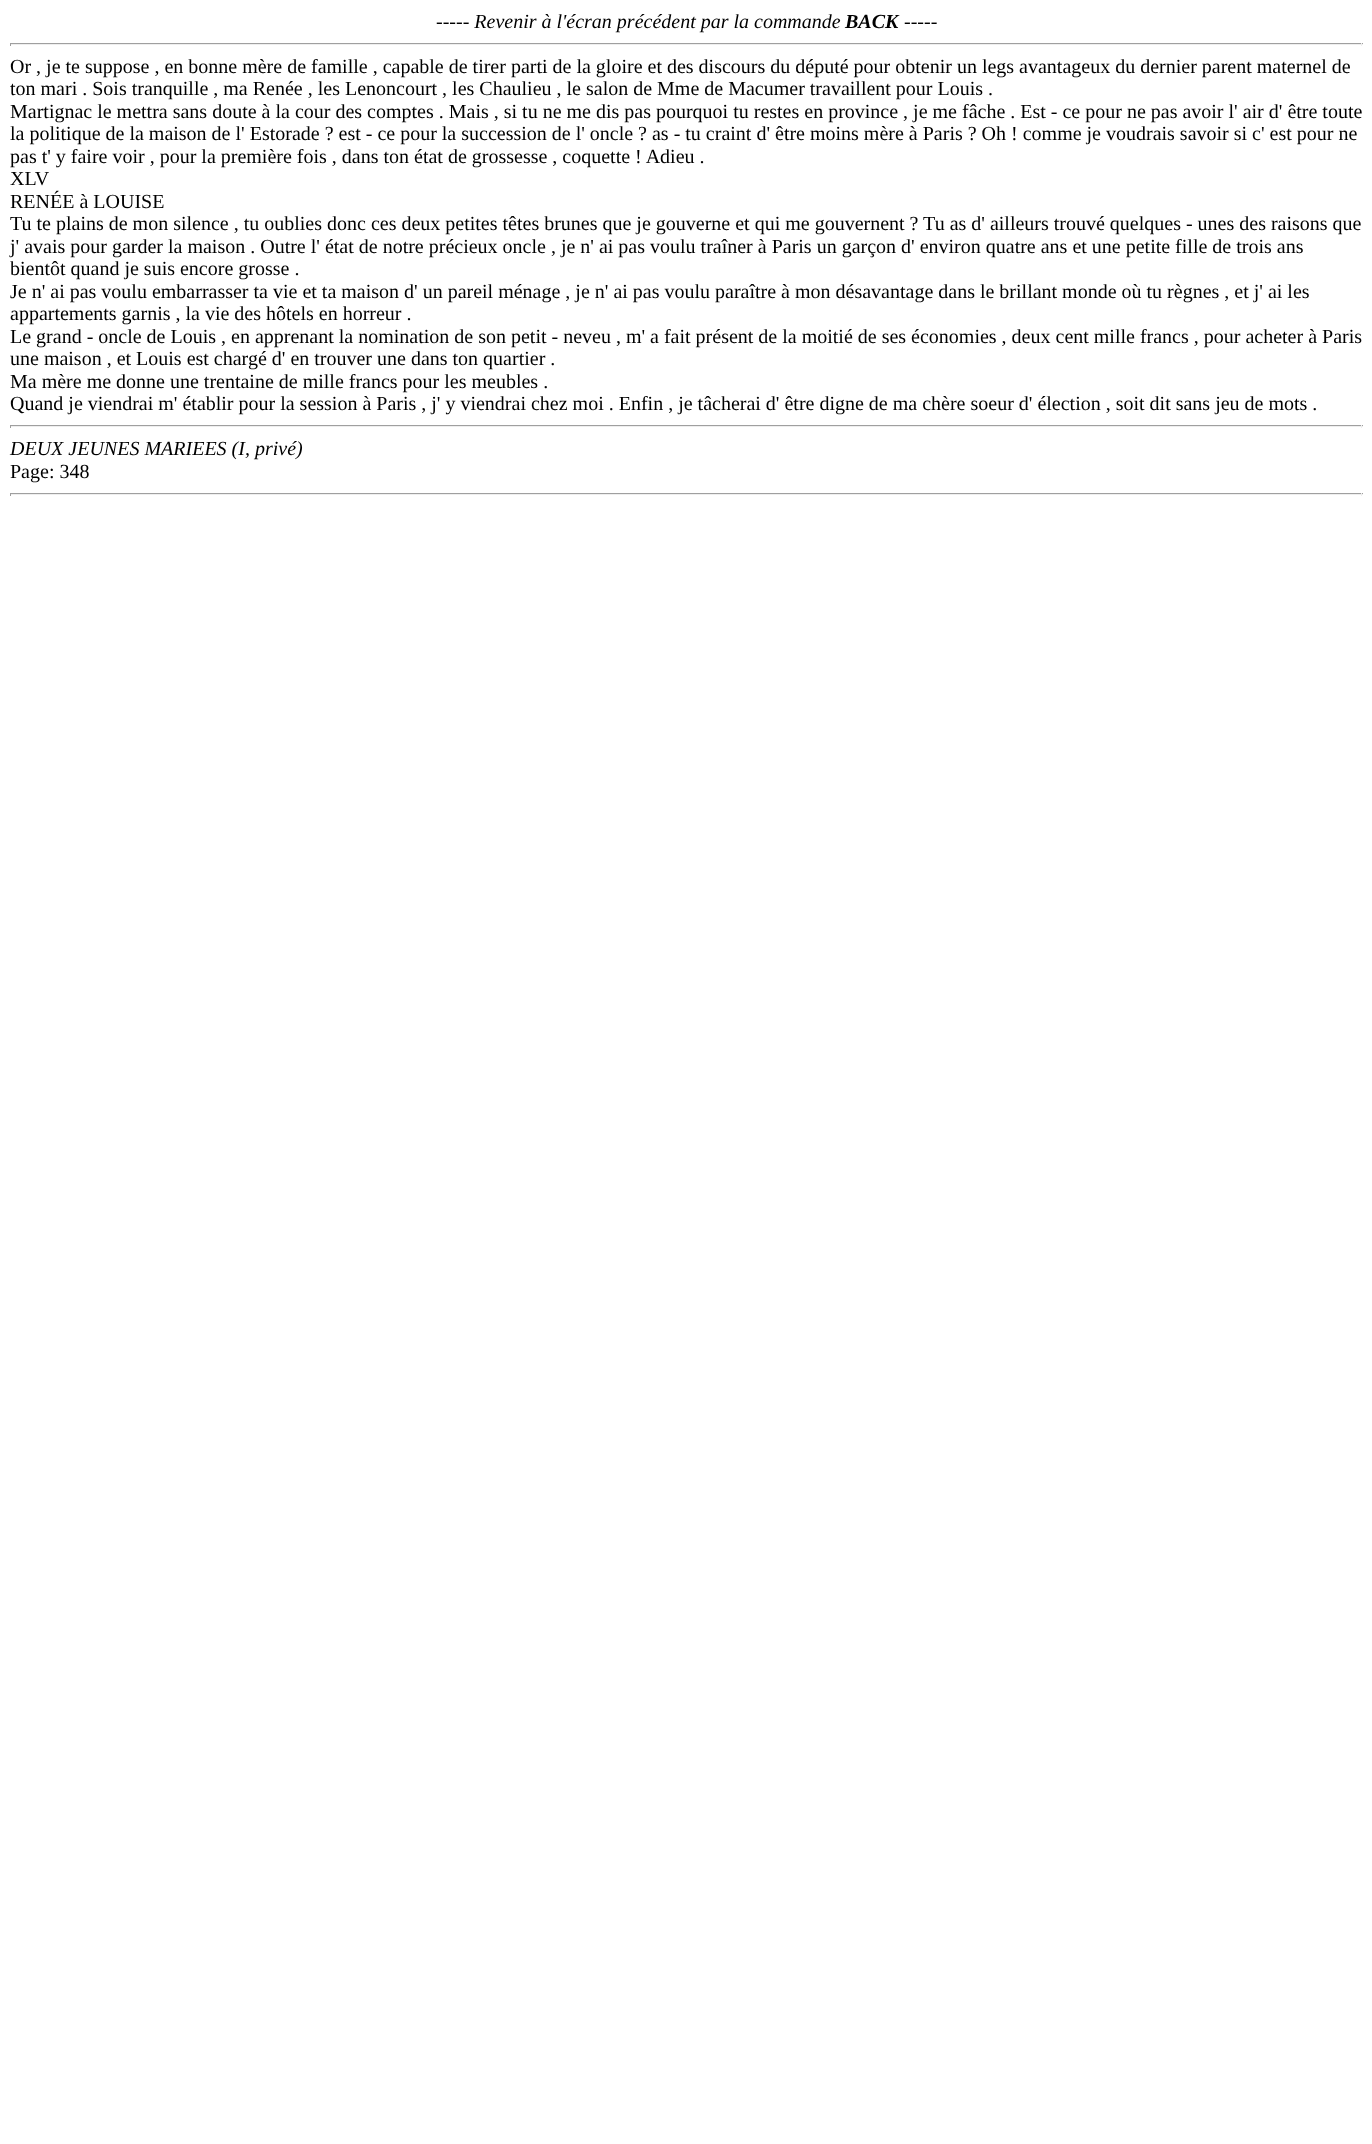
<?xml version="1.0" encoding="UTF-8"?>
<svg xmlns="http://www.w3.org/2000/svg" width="1372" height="2144">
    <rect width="100%" height="100%" fill="#FFFFFF"/>
    <text x="436" y="28" font-family="Liberation Serif" font-size="20" font-style="italic" fill="#000000">----- Revenir à l'écran précédent par la commande</text>
    <text x="845" y="28" font-family="Liberation Serif" font-size="20" font-weight="700" font-style="italic" fill="#000000">BACK</text>
    <text x="904" y="28" font-family="Liberation Serif" font-size="20" font-style="italic" fill="#000000">-----</text>
    <rect x="10" y="43" width="1353" height="1" fill="#9F9F9F"/>
    <rect x="1361" y="43" width="1" height="3" fill="#EEEEEE"/>
    <rect x="10" y="44" width="1353" height="1" fill="#EEEEEE"/>
    <rect x="10" y="43" width="1" height="3" fill="#9F9F9F"/>
    <text font-family="Liberation Serif" font-size="20" fill="#000000">
        <tspan x="10" y="73">Or , je te suppose , en bonne mère de famille , capable de tirer parti de la gloire et des discours du député pour obtenir un legs avantageux du dernier parent maternel de</tspan>
        <tspan x="10" y="95">ton mari . Sois tranquille , ma Renée , les Lenoncourt , les Chaulieu , le salon de Mme de Macumer travaillent pour Louis .</tspan>
        <tspan x="10" y="118">Martignac le mettra sans doute à la cour des comptes . Mais , si tu ne me dis pas pourquoi tu restes en province , je me fâche . Est - ce pour ne pas avoir l' air d' être toute</tspan>
        <tspan x="10" y="140">la politique de la maison de l' Estorade ? est - ce pour la succession de l' oncle ? as - tu craint d' être moins mère à Paris ? Oh ! comme je voudrais savoir si c' est pour ne</tspan>
        <tspan x="10" y="163">pas t' y faire voir , pour la première fois , dans ton état de grossesse , coquette ! Adieu .</tspan>
        <tspan x="10" y="185">XLV</tspan>
        <tspan x="10" y="208">RENÉE à LOUISE</tspan>
        <tspan x="10" y="230">Tu te plains de mon silence , tu oublies donc ces deux petites têtes brunes que je gouverne et qui me gouvernent ? Tu as d' ailleurs trouvé quelques - unes des raisons que</tspan>
        <tspan x="10" y="253">j' avais pour garder la maison . Outre l' état de notre précieux oncle , je n' ai pas voulu traîner à Paris un garçon d' environ quatre ans et une petite fille de trois ans</tspan>
        <tspan x="10" y="275">bientôt quand je suis encore grosse .</tspan>
        <tspan x="10" y="298">Je n' ai pas voulu embarrasser ta vie et ta maison d' un pareil ménage , je n' ai pas voulu paraître à mon désavantage dans le brillant monde où tu règnes , et j' ai les</tspan>
        <tspan x="10" y="320">appartements garnis , la vie des hôtels en horreur .</tspan>
        <tspan x="10" y="343">Le grand - oncle de Louis , en apprenant la nomination de son petit - neveu , m' a fait présent de la moitié de ses économies , deux cent mille francs , pour acheter à Paris</tspan>
        <tspan x="10" y="365">une maison , et Louis est chargé d' en trouver une dans ton quartier .</tspan>
        <tspan x="10" y="388">Ma mère me donne une trentaine de mille francs pour les meubles .</tspan>
        <tspan x="10" y="410">Quand je viendrai m' établir pour la session à Paris , j' y viendrai chez moi . Enfin , je tâcherai d' être digne de ma chère soeur d' élection , soit dit sans jeu de mots .</tspan>
    </text>
    <rect x="10" y="425" width="1353" height="1" fill="#9F9F9F"/>
    <rect x="1361" y="425" width="1" height="3" fill="#EEEEEE"/>
    <rect x="10" y="426" width="1353" height="1" fill="#EEEEEE"/>
    <rect x="10" y="425" width="1" height="3" fill="#9F9F9F"/>
    <text x="10" y="455" font-family="Liberation Serif" font-size="20" font-style="italic" fill="#000000">DEUX JEUNES MARIEES (I, privé)</text>
    <text x="10" y="478" font-family="Liberation Serif" font-size="20" fill="#000000">Page: 348</text>
    <rect x="10" y="493" width="1353" height="1" fill="#9F9F9F"/>
    <rect x="1361" y="493" width="1" height="3" fill="#EEEEEE"/>
    <rect x="10" y="494" width="1353" height="1" fill="#EEEEEE"/>
    <rect x="10" y="493" width="1" height="3" fill="#9F9F9F"/>
</svg>
